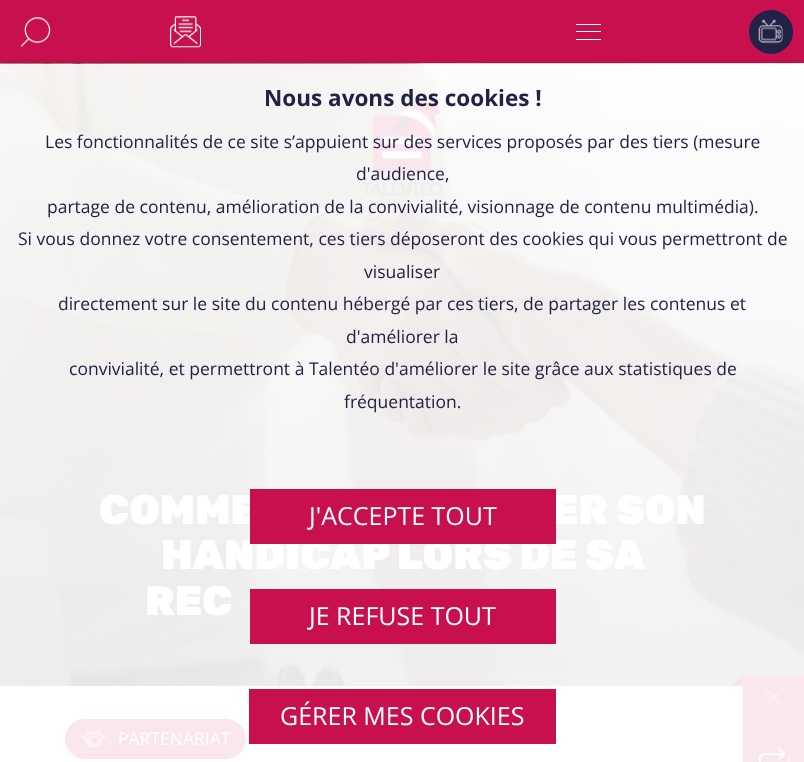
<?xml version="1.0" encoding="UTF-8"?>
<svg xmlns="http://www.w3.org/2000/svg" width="804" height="762">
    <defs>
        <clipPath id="clip1"><rect x="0" y="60" width="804" height="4"/></clipPath>
        <filter id="blur1" x="-50%" y="-200%" width="200%" height="500%"><feGaussianBlur stdDeviation="6"/></filter>
    </defs>
    <rect width="100%" height="100%" fill="#FFFFFF"/>
    <rect x="0" y="0" width="804" height="63" fill="#C7104D"/>
    <image x="21" y="17" width="30" height="31" href="img_01.png"/>
    <image x="170" y="16" width="31" height="32" href="img_02.png"/>
    <rect x="576" y="31" width="25" height="1" fill="#FFFFFF"/>
    <rect x="576" y="24" width="25" height="1" fill="#FFFFFF"/>
    <rect x="576" y="39" width="25" height="1" fill="#FFFFFF"/>
    <circle cx="771" cy="32" r="22" fill="#222146"/>
    <image x="758" y="19" width="25" height="25" href="img_03.png"/>
    <image x="0" y="63" width="804" height="623" href="img_05.png"/>
    <image x="361" y="99" width="83" height="97" href="img_04.png"/>
    <rect x="65.5" y="719.5" width="180" height="39" rx="19.5" fill="#F9E7ED" stroke="#F9E7ED"/>
    <image x="81" y="729" width="26" height="20" href="img_06.png"/>
    <path d="M 742.5 686 H 731 L 742.5 675 Z" fill="#F1E7EB"/>
    <rect x="743" y="675" width="61" height="87" fill="#F9E7ED"/>
    <image x="765" y="689" width="18" height="18" href="img_07.png"/>
    <rect x="751" y="731" width="7" height="3" fill="#F7E9E9"/>
    <rect x="766" y="731" width="8" height="3" fill="#F7E9E9"/>
    <rect x="783" y="731" width="7" height="3" fill="#F7E9E9"/>
    <image x="759" y="747" width="31" height="15" href="img_08.png"/>
    <g clip-path="url(#clip1)">
        <rect x="0" y="70" width="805" height="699" fill="#000000" fill-opacity="0.5" filter="url(#blur1)"/>
    </g>
    <text x="264" y="106" font-family="Open Sans" font-size="22.5" font-weight="700" fill="#222146">Nous avons des cookies !</text>
    <text x="45" y="148" font-family="Open Sans" font-size="17.5" fill="#222146">Les fonctionnalités de ce site s’appuient sur des services proposés par des tiers (mesure</text>
    <text x="356" y="180" font-family="Open Sans" font-size="17.5" fill="#222146">d'audience,</text>
    <text x="47" y="213" font-family="Open Sans" font-size="17.5" fill="#222146">partage de contenu, amélioration de la convivialité, visionnage de contenu multimédia).</text>
    <text x="18" y="245" font-family="Open Sans" font-size="17.5" fill="#222146">Si vous donnez votre consentement, ces tiers déposeront des cookies qui vous permettront de</text>
    <text x="364" y="278" font-family="Open Sans" font-size="17.5" fill="#222146">visualiser</text>
    <text x="58" y="310" font-family="Open Sans" font-size="17.5" fill="#222146">directement sur le site du contenu hébergé par ces tiers, de partager les contenus et</text>
    <text x="346" y="343" font-family="Open Sans" font-size="17.5" fill="#222146">d'améliorer la</text>
    <text x="69" y="375" font-family="Open Sans" font-size="17.5" fill="#222146">convivialité, et permettront à Talentéo d'améliorer le site grâce aux statistiques de</text>
    <text x="344" y="408" font-family="Open Sans" font-size="17.5" fill="#222146">fréquentation.</text>
    <text x="99" y="524" font-family="Rubik" font-size="41.25" font-weight="300" fill="#FFFFFF">COMME</text>
    <text x="551" y="524" font-family="Rubik" font-size="41.25" font-weight="300" fill="#FFFFFF">ER SON</text>
    <text x="161" y="569" font-family="Rubik" font-size="41.25" font-weight="300" fill="#FFFFFF">HANDICAP LORS DE SA</text>
    <rect x="250" y="489" width="306" height="55" fill="#C7104D"/>
    <text x="309" y="525" font-family="Open Sans" font-size="25" fill="#FFFFFF">J'ACCEPTE TOUT</text>
    <rect x="250" y="589" width="306" height="55" fill="#C7104D"/>
    <text x="309" y="625" font-family="Open Sans" font-size="25" fill="#FFFFFF">JE REFUSE TOUT</text>
    <rect x="249" y="689" width="307" height="55" fill="#C7104D"/>
    <text x="280" y="725" font-family="Open Sans" font-size="25" fill="#FFFFFF">GÉRER MES COOKIES</text>
    <text x="145" y="615" font-family="Rubik" font-size="41.25" font-weight="300" fill="#FFFFFF">REC</text>
    <text x="118" y="745" font-family="Open Sans" font-size="17.5" fill="#FFFFFF">PARTENARIAT</text>
</svg>
